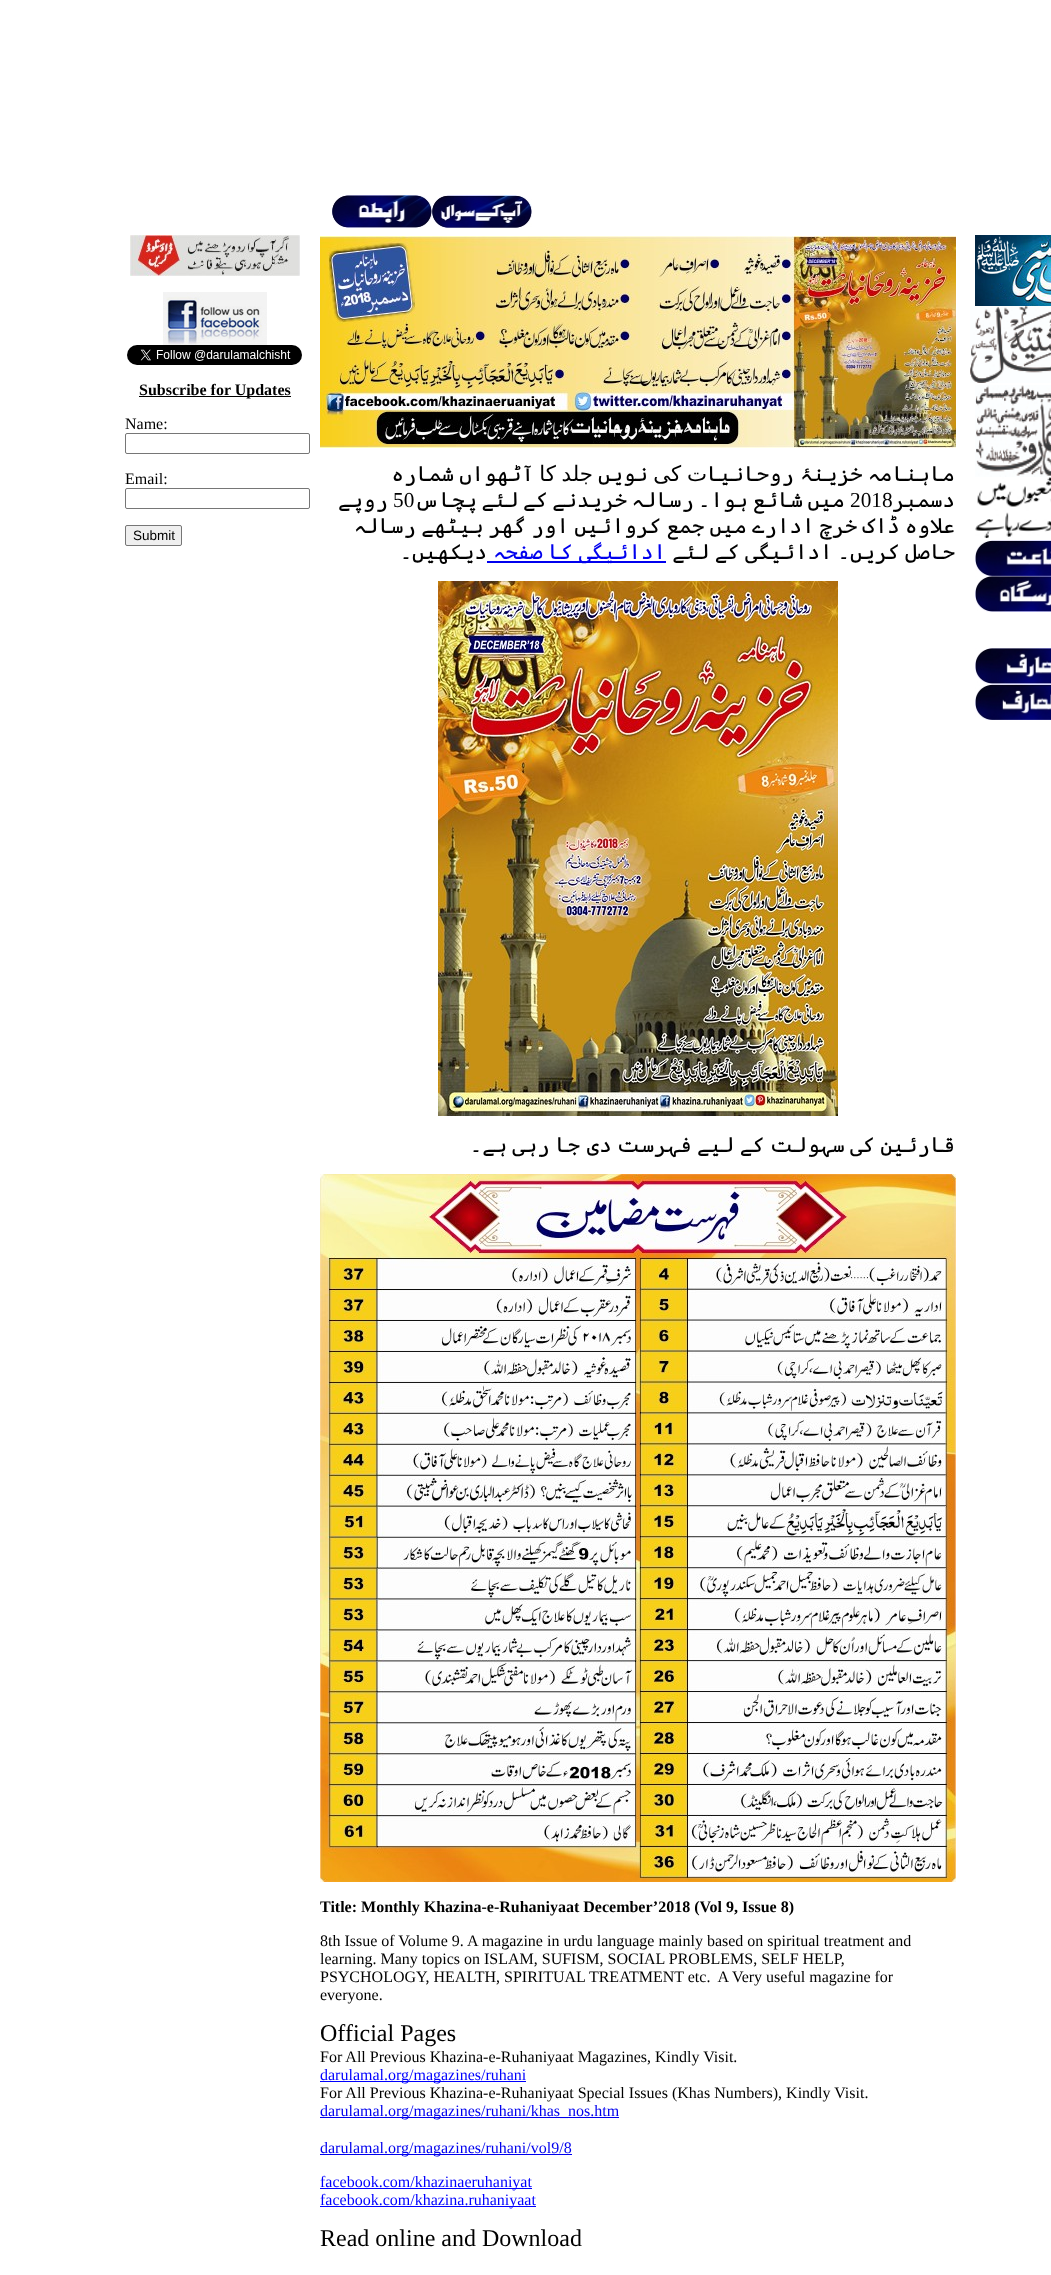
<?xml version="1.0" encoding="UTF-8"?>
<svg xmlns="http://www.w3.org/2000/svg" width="1051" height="2275">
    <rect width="100%" height="100%" fill="#FFFFFF"/>
    <image x="332" y="195" width="100" height="33" href="img_01.png"/>
    <image x="432" y="195" width="100" height="33" href="img_02.png"/>
    <image x="130" y="235" width="170" height="41" href="img_03.png"/>
    <image x="163" y="292" width="104" height="53" href="img_04.png"/>
    <image x="127" y="345" width="175" height="20" href="img_05.png"/>
    <rect x="139" y="396" width="152" height="1" fill="#000000"/>
    <text x="139" y="395" font-family="Liberation Serif" font-size="16" font-weight="700" fill="#000000">Subscribe for Updates</text>
    <text x="125" y="429" font-family="Liberation Serif" font-size="16" fill="#000000">Name:</text>
    <rect x="125.5" y="433.5" width="184" height="20" rx="1.5" fill="none" stroke="#767676"/>
    <text x="125" y="484" font-family="Liberation Serif" font-size="16" fill="#000000">Email:</text>
    <rect x="125.5" y="488.5" width="184" height="20" rx="1.5" fill="none" stroke="#767676"/>
    <rect x="125.5" y="525.5" width="56" height="20" rx="1.5" fill="#EFEFEF" stroke="#767676"/>
    <text x="133" y="540" font-family="Liberation Sans" font-size="13.5" fill="#000000">Submit</text>
    <image x="320" y="236" width="636" height="212" href="img_06.png"/>
    <image x="975" y="235" width="76" height="71" href="img_07.png"/>
    <image x="970" y="306" width="81" height="77" href="img_08.png"/>
    <image x="975" y="385" width="76" height="92" href="img_09.png"/>
    <image x="975" y="477" width="76" height="62" href="img_10.png"/>
    <image x="975" y="540" width="76" height="36" href="img_11.png"/>
    <image x="975" y="576" width="76" height="36" href="img_12.png"/>
    <image x="975" y="648" width="76" height="36" href="img_13.png"/>
    <image x="975" y="684" width="76" height="36" href="img_14.png"/>
    <text x="454" y="481" font-family="Cascadia Code" font-size="21.3" direction="rtl" fill="#000000">شمارہ</text>
    <text x="534" y="481" font-family="Cascadia Code" font-size="21.3" direction="rtl" fill="#000000">آٹھواں</text>
    <text x="556" y="481" font-family="DejaVu Sans" font-size="21.3" direction="rtl" fill="#000000">کا</text>
    <text x="593" y="481" font-family="DejaVu Sans" font-size="21.3" direction="rtl" fill="#000000">جلد</text>
    <text x="648" y="481" font-family="Cascadia Code" font-size="21.3" direction="rtl" fill="#000000">نویں</text>
    <text x="707" y="481" word-spacing="-1" font-family="DejaVu Sans" font-size="21.3" direction="rtl" fill="#000000">ت کی</text>
    <text x="794" y="481" font-family="Cascadia Code" font-size="21.3" direction="rtl" fill="#000000">روحانیا</text>
    <text x="955" y="481" word-spacing="-7.25" font-family="Cascadia Code" font-size="21.3" direction="rtl" fill="#000000">ماہنامہ خزینۂ</text>
    <text x="388" y="507" font-family="Cascadia Code" font-size="21.3" direction="rtl" fill="#000000">روپے</text>
    <text x="393" y="507" font-family="Liberation Serif" font-size="21.3" fill="#000000">50</text>
    <text x="477" y="507" font-family="Cascadia Code" font-size="21.3" direction="rtl" fill="#000000">پچاس</text>
    <text x="519" y="507" font-family="Cascadia Code" font-size="21.3" direction="rtl" fill="#000000">لئے</text>
    <text x="548" y="507" font-family="Cascadia Code" font-size="21.3" direction="rtl" fill="#000000">کے</text>
    <text x="627" y="507" font-family="Cascadia Code" font-size="21.3" direction="rtl" fill="#000000">خریدنے</text>
    <text x="694" y="507" font-family="Cascadia Code" font-size="21.3" direction="rtl" fill="#000000">رسالہ</text>
    <text x="748" y="507" font-family="Cascadia Code" font-size="21.3" direction="rtl" fill="#000000">ہوا۔</text>
    <text x="803" y="507" font-family="Cascadia Code" font-size="21.3" direction="rtl" fill="#000000">شائع</text>
    <text x="845" y="507" font-family="Cascadia Code" font-size="21.3" direction="rtl" fill="#000000">میں</text>
    <text x="850" y="507" font-family="Liberation Serif" font-size="21.3" fill="#000000">2018</text>
    <text font-family="Cascadia Code" font-size="21.3" direction="rtl" fill="#000000">
        <tspan x="955" y="507">دسمبر</tspan>
        <tspan x="955" y="533" word-spacing="-7.25">علاوہ ڈاک خرچ ادارے میں جمع کروائیں اور گھر بیٹھے رسالہ</tspan>
    </text>
    <text x="487" y="559" font-family="Cascadia Code" font-size="21.3" direction="rtl" fill="#000000">دیکھیں۔</text>
    <rect x="487" y="561" width="179" height="2" fill="#0000EE"/>
    <text x="573" y="559" word-spacing="-7.25" font-family="Cascadia Code" font-size="21.3" direction="rtl" fill="#0000EE">کا صفحہ</text>
    <text x="666" y="559" font-family="Cascadia Code" font-size="21.3" direction="rtl" fill="#0000EE">ادائیگی</text>
    <text x="900" y="559" word-spacing="-7.25" font-family="Cascadia Code" font-size="21.3" direction="rtl" fill="#000000">کریں۔ ادائیگی کے لئے</text>
    <text x="955" y="559" font-family="Cascadia Code" font-size="21.3" direction="rtl" fill="#000000">حاصل</text>
    <image x="438" y="581" width="400" height="535" href="img_15.png"/>
    <text x="580" y="1152" word-spacing="-7.25" font-family="Cascadia Code" font-size="21.3" direction="rtl" fill="#000000">جا رہی ہے۔</text>
    <text x="955" y="1152" word-spacing="-7.25" font-family="Cascadia Code" font-size="21.3" direction="rtl" fill="#000000">قارئین کی سہولت کے لیے فہرست دی</text>
    <image x="320" y="1174" width="636" height="708" href="img_16.png"/>
    <text x="320" y="1912" font-family="Liberation Serif" font-size="16" font-weight="700" fill="#000000">Title: Monthly Khazina-e-Ruhaniyaat December’2018 (Vol 9, Issue 8)</text>
    <text font-family="Liberation Serif" font-size="16" fill="#000000" xml:space="preserve"><tspan x="320" y="1946">8th Issue of Volume 9. A magazine in urdu language mainly based on spiritual treatment and</tspan><tspan x="320" y="1964">learning. Many topics on ISLAM, SUFISM, SOCIAL PROBLEMS, SELF HELP,</tspan><tspan x="320" y="1982">PSYCHOLOGY, HEALTH, SPIRITUAL TREATMENT etc.  A Very useful magazine for</tspan><tspan x="320" y="2000">everyone.</tspan></text>
    <text x="320" y="2041" font-family="Liberation Serif" font-size="24" fill="#000000">Official Pages</text>
    <text x="320" y="2062" font-family="Liberation Serif" font-size="16" fill="#000000">For All Previous Khazina-e-Ruhaniyaat Magazines, Kindly Visit.</text>
    <rect x="320" y="2081" width="206" height="1" fill="#0000FF"/>
    <text x="320" y="2080" font-family="Liberation Serif" font-size="16" fill="#0000FF">darulamal.org/magazines/ruhani</text>
    <text x="320" y="2098" font-family="Liberation Serif" font-size="16" fill="#000000">For All Previous Khazina-e-Ruhaniyaat Special Issues (Khas Numbers), Kindly Visit.</text>
    <rect x="320" y="2117" width="299" height="1" fill="#0000EE"/>
    <text x="320" y="2116" font-family="Liberation Serif" font-size="16" fill="#0000EE">darulamal.org/magazines/ruhani/khas_nos.htm</text>
    <rect x="320" y="2154" width="252" height="1" fill="#0000EE"/>
    <text x="320" y="2153" font-family="Liberation Serif" font-size="16" fill="#0000EE">darulamal.org/magazines/ruhani/vol9/8</text>
    <rect x="320" y="2188" width="212" height="1" fill="#0000FF"/>
    <text x="320" y="2187" font-family="Liberation Serif" font-size="16" fill="#0000FF">facebook.com/khazinaeruhaniyat</text>
    <rect x="320" y="2206" width="216" height="1" fill="#0000FF"/>
    <text x="320" y="2205" font-family="Liberation Serif" font-size="16" fill="#0000FF">facebook.com/khazina.ruhaniyaat</text>
    <text x="320" y="2246" font-family="Liberation Serif" font-size="24" fill="#000000">Read online and Download</text>
</svg>
